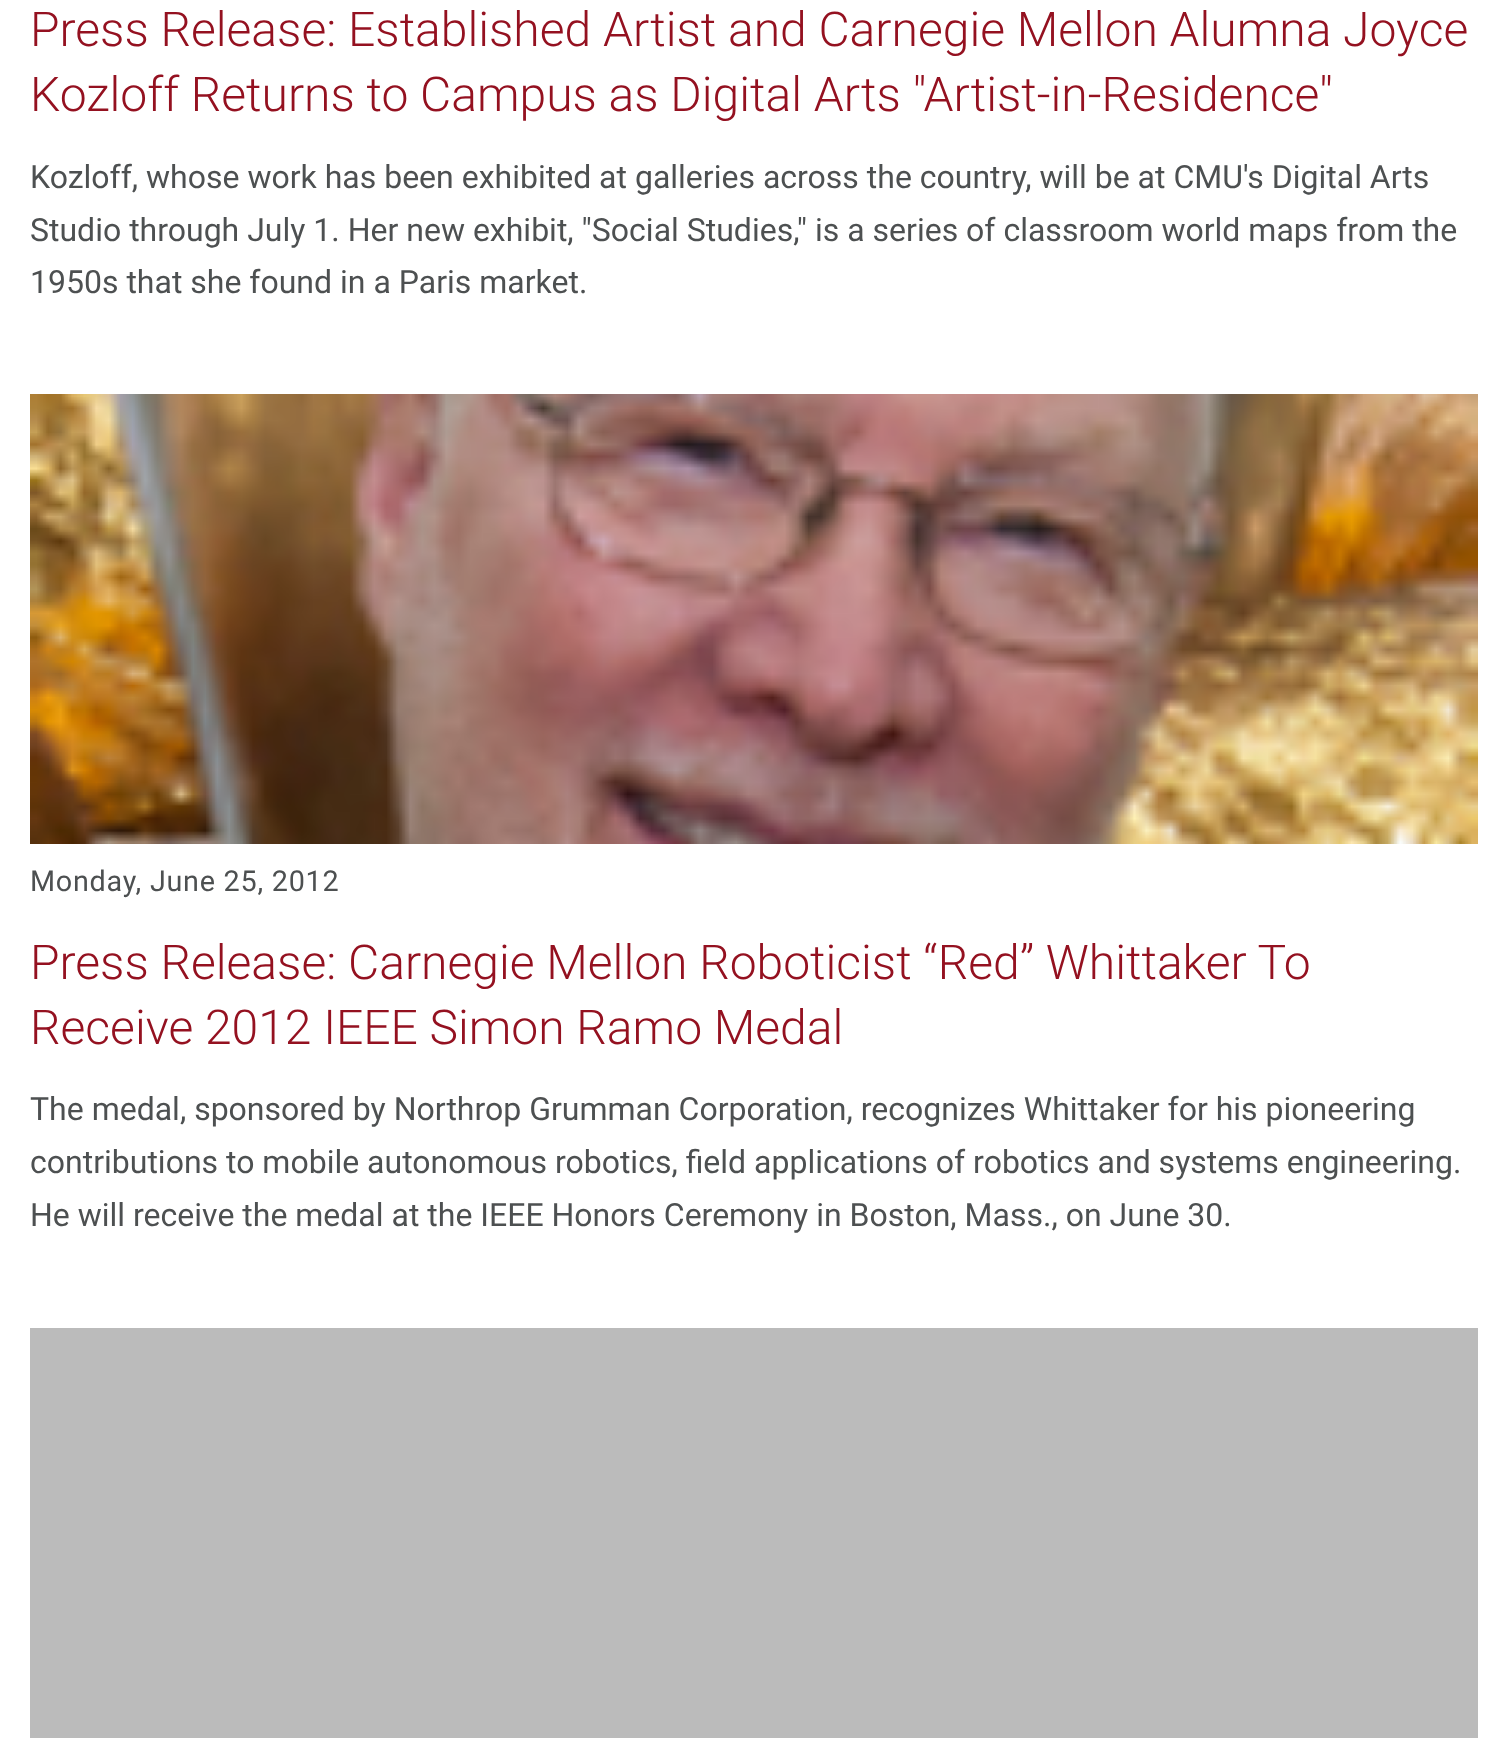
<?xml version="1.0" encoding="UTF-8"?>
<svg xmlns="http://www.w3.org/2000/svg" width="1508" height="1738">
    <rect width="100%" height="100%" fill="#FFFFFF"/>
    <text font-family="Roboto" font-size="48" font-weight="300" fill="#941120">
        <tspan x="30" y="46">Press Release: Established Artist and Carnegie Mellon Alumna Joyce</tspan>
        <tspan x="30" y="111">Kozloff Returns to Campus as Digital Arts "Artist-in-Residence"</tspan>
    </text>
    <text font-family="Roboto" font-size="32" fill="#4D5051">
        <tspan x="30" y="188">Kozloff, whose work has been exhibited at galleries across the country, will be at CMU's Digital Arts</tspan>
        <tspan x="30" y="241">Studio through July 1. Her new exhibit, "Social Studies," is a series of classroom world maps from the</tspan>
        <tspan x="30" y="293">1950s that she found in a Paris market.</tspan>
    </text>
    <image x="30" y="394" width="1448" height="450" href="img_01.png"/>
    <text x="30" y="891" font-family="Roboto" font-size="28.75" letter-spacing="0.75" fill="#4D5051">Monday, June 25, 2012</text>
    <text font-family="Roboto" font-size="48" font-weight="300" fill="#941120">
        <tspan x="30" y="979">Press Release: Carnegie Mellon Roboticist “Red” Whittaker To</tspan>
        <tspan x="30" y="1044">Receive 2012 IEEE Simon Ramo Medal</tspan>
    </text>
    <text font-family="Roboto" font-size="32" fill="#4D5051">
        <tspan x="30" y="1120">The medal, sponsored by Northrop Grumman Corporation, recognizes Whittaker for his pioneering</tspan>
        <tspan x="30" y="1173">contributions to mobile autonomous robotics, field applications of robotics and systems engineering.</tspan>
        <tspan x="30" y="1226">He will receive the medal at the IEEE Honors Ceremony in Boston, Mass., on June 30.</tspan>
    </text>
    <rect x="30" y="1328" width="1448" height="410" fill="#BBBBBB"/>
</svg>
